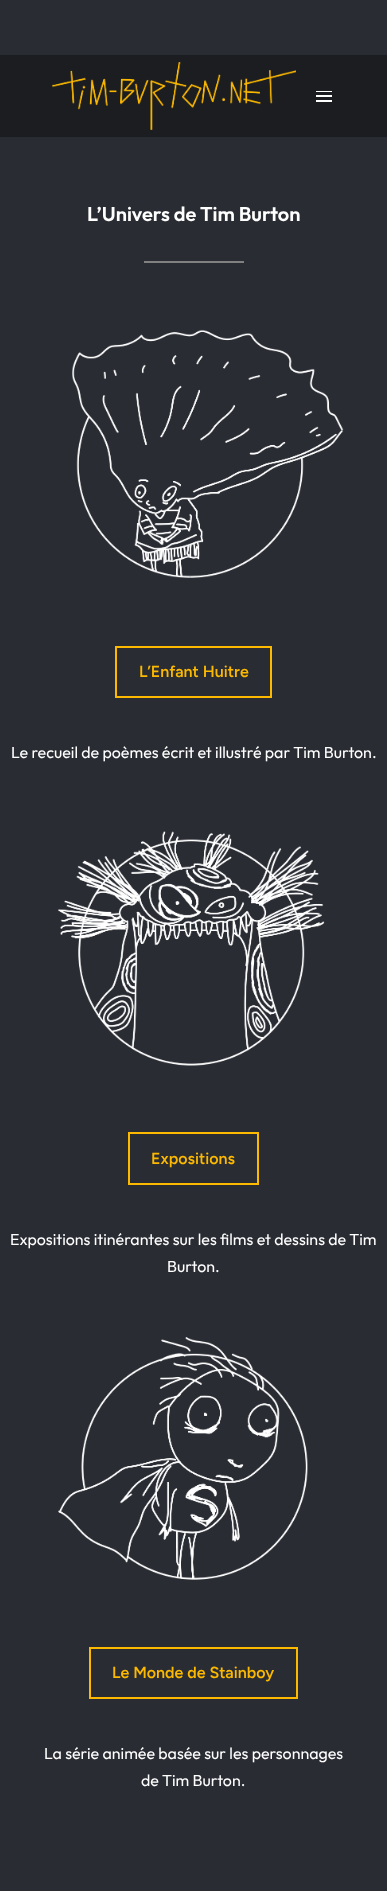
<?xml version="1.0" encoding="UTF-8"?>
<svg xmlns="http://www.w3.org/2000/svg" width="387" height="1891">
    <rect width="100%" height="100%" fill="#292C33"/>
    <rect x="0" y="55" width="387" height="82" fill="#1B1D21"/>
    <image x="51" y="62" width="245" height="68" href="img_01.png"/>
    <rect x="316" y="91" width="16" height="1" fill="#FFFFFF"/>
    <rect x="316" y="95" width="16" height="2" fill="#FFFFFF"/>
    <rect x="316" y="100" width="16" height="2" fill="#FFFFFF"/>
    <text x="87" y="221" font-family="Outfit" font-size="20" font-weight="600" fill="#FFFFFF">L’Univers de Tim Burton</text>
    <rect x="144" y="261" width="100" height="2" fill="#808080"/>
    <image x="72" y="329" width="272" height="249" href="img_02.png"/>
    <rect x="116" y="647" width="155" height="50" fill="none" stroke="#FCB900" stroke-width="2"/>
    <text x="139" y="677" font-family="Figtree" font-size="16" font-weight="600" fill="#FCB900">L’Enfant Huitre</text>
    <text x="11" y="758" font-family="Outfit" font-size="16" fill="#FFFFFF">Le recueil de poèmes écrit et illustré par Tim Burton.</text>
    <image x="58" y="831" width="267" height="235" href="img_03.png"/>
    <rect x="129" y="1133" width="129" height="51" fill="none" stroke="#FCB900" stroke-width="2"/>
    <text x="151" y="1164" font-family="Figtree" font-size="16" font-weight="600" fill="#FCB900">Expositions</text>
    <text x="10" y="1245" font-family="Outfit" font-size="16" fill="#FFFFFF">Expositions itinérantes sur les films et dessins de Tim</text>
    <text x="167" y="1272" font-family="Outfit" font-size="16" fill="#FFFFFF">Burton.</text>
    <image x="58" y="1337" width="250" height="243" href="img_04.png"/>
    <rect x="90" y="1648" width="207" height="50" fill="none" stroke="#FCB900" stroke-width="2"/>
    <text x="112" y="1678" font-family="Figtree" font-size="16" font-weight="600" fill="#FCB900">Le Monde de Stainboy</text>
    <text x="44" y="1759" font-family="Outfit" font-size="16" fill="#FFFFFF">La série animée basée sur les personnages</text>
    <text x="141" y="1786" font-family="Outfit" font-size="16" fill="#FFFFFF">de Tim Burton.</text>
</svg>
